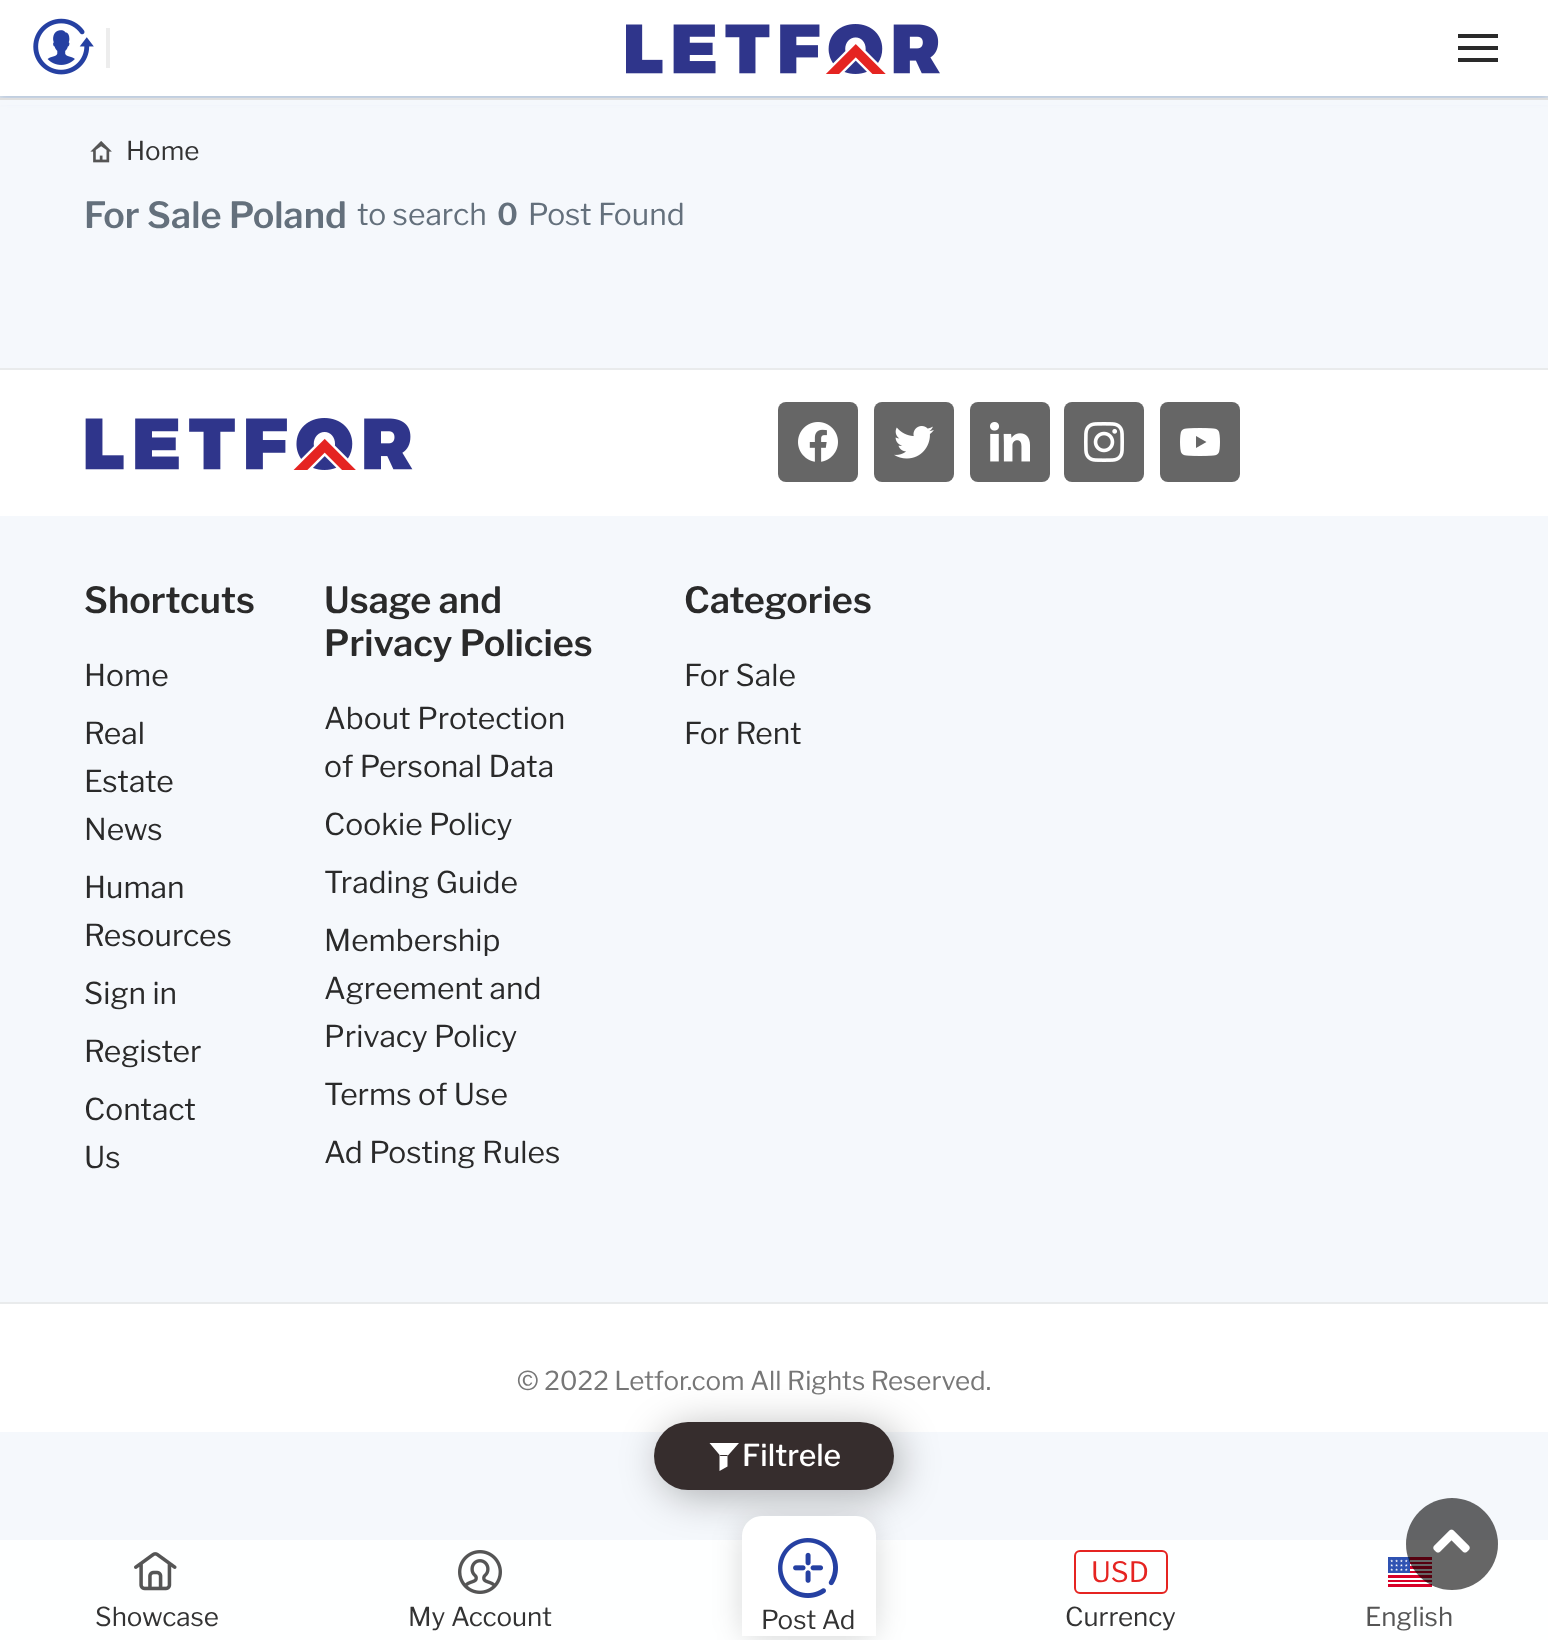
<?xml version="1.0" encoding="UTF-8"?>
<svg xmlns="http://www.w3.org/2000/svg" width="1548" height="1640">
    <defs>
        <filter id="blur1" x="-50%" y="-200%" width="200%" height="500%"><feGaussianBlur stdDeviation="4"/></filter>
        <filter id="blur2" x="-50%" y="-200%" width="200%" height="500%"><feGaussianBlur stdDeviation="20"/></filter>
        <filter id="blur3" x="-50%" y="-200%" width="200%" height="500%"><feGaussianBlur stdDeviation="15"/></filter>
    </defs>
    <rect width="100%" height="100%" fill="#F5F8FC"/>
    <rect x="0" y="96" width="1548" height="2" fill="#E0E4EA"/>
    <rect x="0" y="2" width="1548" height="96" fill="#366EB4" fill-opacity="0.3" filter="url(#blur1)"/>
    <rect x="0" y="0" width="1548" height="96" fill="#FFFFFF"/>
    <image x="33" y="18" width="61" height="57" href="img_01.png"/>
    <rect x="106" y="28" width="4" height="40" fill="#EDEDED"/>
    <image x="626" y="24" width="314" height="50" href="img_02.png"/>
    <rect x="1458" y="46" width="40" height="4" fill="#2A2A2A"/>
    <rect x="1458" y="34" width="40" height="4" fill="#2A2A2A"/>
    <rect x="1458" y="58" width="40" height="4" fill="#2A2A2A"/>
    <rect x="0" y="100" width="1548" height="5" fill="#F5F8FC"/>
    <image x="90" y="141" width="22" height="22" href="img_03.png"/>
    <text x="126" y="160" font-family="Libre Franklin" font-size="26" fill="#333333">Home</text>
    <text x="84" y="228" font-family="Libre Franklin" font-size="36" font-weight="600" fill="#64707C">For Sale Poland</text>
    <text x="357" y="225" font-family="Libre Franklin" font-size="30" fill="#64707C">to search</text>
    <text x="497" y="225" font-family="Libre Franklin" font-size="30" font-weight="600" fill="#64707C">0</text>
    <text x="528" y="225" font-family="Libre Franklin" font-size="30" fill="#64707C">Post Found</text>
    <rect x="0" y="98" width="1548" height="2" fill="#DFDFDF"/>
    <rect x="0" y="1304" width="1548" height="128" fill="#FFFFFF"/>
    <rect x="660" y="1428" width="240" height="68" rx="34" fill="#000000" fill-opacity="0.3" filter="url(#blur2)"/>
    <rect x="654" y="1422" width="240" height="68" rx="34" fill="#362D2D"/>
    <path d="M 727.5 1456 H 720.5 L 709.5 1443 H 739 Z M 727.5 1466.5 L 719.5 1471 V 1455 H 727.5 Z" fill="#FFFFFF" fill-rule="evenodd"/>
    <text x="742" y="1466" font-family="Libre Franklin" font-size="30" font-weight="500" fill="#FFFFFF">Filtrele</text>
    <rect x="0" y="370" width="1548" height="146" fill="#FFFFFF"/>
    <rect x="0" y="368" width="1548" height="2" fill="#E9EBEC"/>
    <image x="85" y="418" width="328" height="52" href="img_04.png"/>
    <rect x="778" y="402" width="80" height="80" rx="8" fill="#666666"/>
    <image x="798" y="422" width="40" height="40" href="img_05.png"/>
    <rect x="874" y="402" width="80" height="80" rx="8" fill="#666666"/>
    <image x="894" y="426" width="40" height="33" href="img_06.png"/>
    <rect x="970" y="402" width="80" height="80" rx="8" fill="#666666"/>
    <image x="990" y="422" width="40" height="40" href="img_07.png"/>
    <rect x="1064" y="402" width="80" height="80" rx="8" fill="#666666"/>
    <image x="1084" y="422" width="40" height="40" href="img_08.png"/>
    <rect x="1160" y="402" width="80" height="80" rx="8" fill="#666666"/>
    <image x="1180" y="428" width="40" height="28" href="img_09.png"/>
    <text x="84" y="613" font-family="Libre Franklin" font-size="36" font-weight="600" fill="#2A2A2A">Shortcuts</text>
    <text font-family="Libre Franklin" font-size="30" fill="#2A2A2A">
        <tspan x="84" y="686">Home</tspan>
        <tspan x="84" y="744">Real</tspan>
        <tspan x="84" y="792">Estate</tspan>
        <tspan x="84" y="840">News</tspan>
        <tspan x="84" y="898">Human</tspan>
        <tspan x="84" y="946">Resources</tspan>
        <tspan x="84" y="1004">Sign in</tspan>
        <tspan x="84" y="1062">Register</tspan>
        <tspan x="84" y="1120">Contact</tspan>
        <tspan x="84" y="1168">Us</tspan>
    </text>
    <text font-family="Libre Franklin" font-size="36" font-weight="600" fill="#2A2A2A">
        <tspan x="324" y="613">Usage and</tspan>
        <tspan x="324" y="656">Privacy Policies</tspan>
    </text>
    <text font-family="Libre Franklin" font-size="30" fill="#2A2A2A">
        <tspan x="324" y="729">About Protection</tspan>
        <tspan x="324" y="777">of Personal Data</tspan>
        <tspan x="324" y="835">Cookie Policy</tspan>
        <tspan x="324" y="893">Trading Guide</tspan>
        <tspan x="324" y="951">Membership</tspan>
        <tspan x="324" y="999">Agreement and</tspan>
        <tspan x="324" y="1047">Privacy Policy</tspan>
        <tspan x="324" y="1105">Terms of Use</tspan>
        <tspan x="324" y="1163">Ad Posting Rules</tspan>
    </text>
    <text x="684" y="613" font-family="Libre Franklin" font-size="36" font-weight="600" fill="#2A2A2A">Categories</text>
    <text font-family="Libre Franklin" font-size="30" fill="#2A2A2A">
        <tspan x="684" y="686">For Sale</tspan>
        <tspan x="684" y="744">For Rent</tspan>
    </text>
    <rect x="0" y="1302" width="1548" height="2" fill="#E9EBEC"/>
    <text x="517" y="1390" font-family="Libre Franklin" font-size="26" fill="#777777">© 2022 Letfor.com All Rights Reserved.</text>
    <rect x="0" y="1540" width="1548" height="100" fill="#FEFFFF"/>
    <image x="1388" y="1557" width="44" height="30" href="img_14.png"/>
    <circle cx="1452" cy="1544" r="46" fill="#000000" fill-opacity="0.6"/>
    <image x="1433" y="1529" width="37" height="24" href="img_10.png"/>
    <image x="134" y="1552" width="43" height="39" href="img_11.png"/>
    <text x="95" y="1626" font-family="Libre Franklin" font-size="26" fill="#333333">Showcase</text>
    <image x="458" y="1550" width="44" height="44" href="img_12.png"/>
    <text x="408" y="1626" font-family="Libre Franklin" font-size="26" fill="#333333">My Account</text>
    <rect x="742" y="1520" width="134" height="120" rx="20" fill="#000000" fill-opacity="0.15" filter="url(#blur3)"/>
    <path d="M 762 1516 H 856 C 867 1516 876 1525 876 1536 V 1636 H 742 V 1536 C 742 1525 751 1516 762 1516 Z" fill="#FFFFFF"/>
    <image x="778" y="1538" width="60" height="60" href="img_13.png"/>
    <text x="761" y="1629" font-family="Libre Franklin" font-size="26" fill="#333333">Post Ad</text>
    <rect x="1075" y="1551" width="92" height="42" rx="5" fill="none" stroke="#E52421" stroke-width="2"/>
    <text x="1091" y="1582" font-family="Libre Franklin" font-size="28" fill="#E52421">USD</text>
    <text x="1065" y="1626" font-family="Libre Franklin" font-size="26" fill="#333333">Currency</text>
    <text x="1365" y="1626" font-family="Libre Franklin" font-size="26" fill="#555555">English</text>
</svg>
